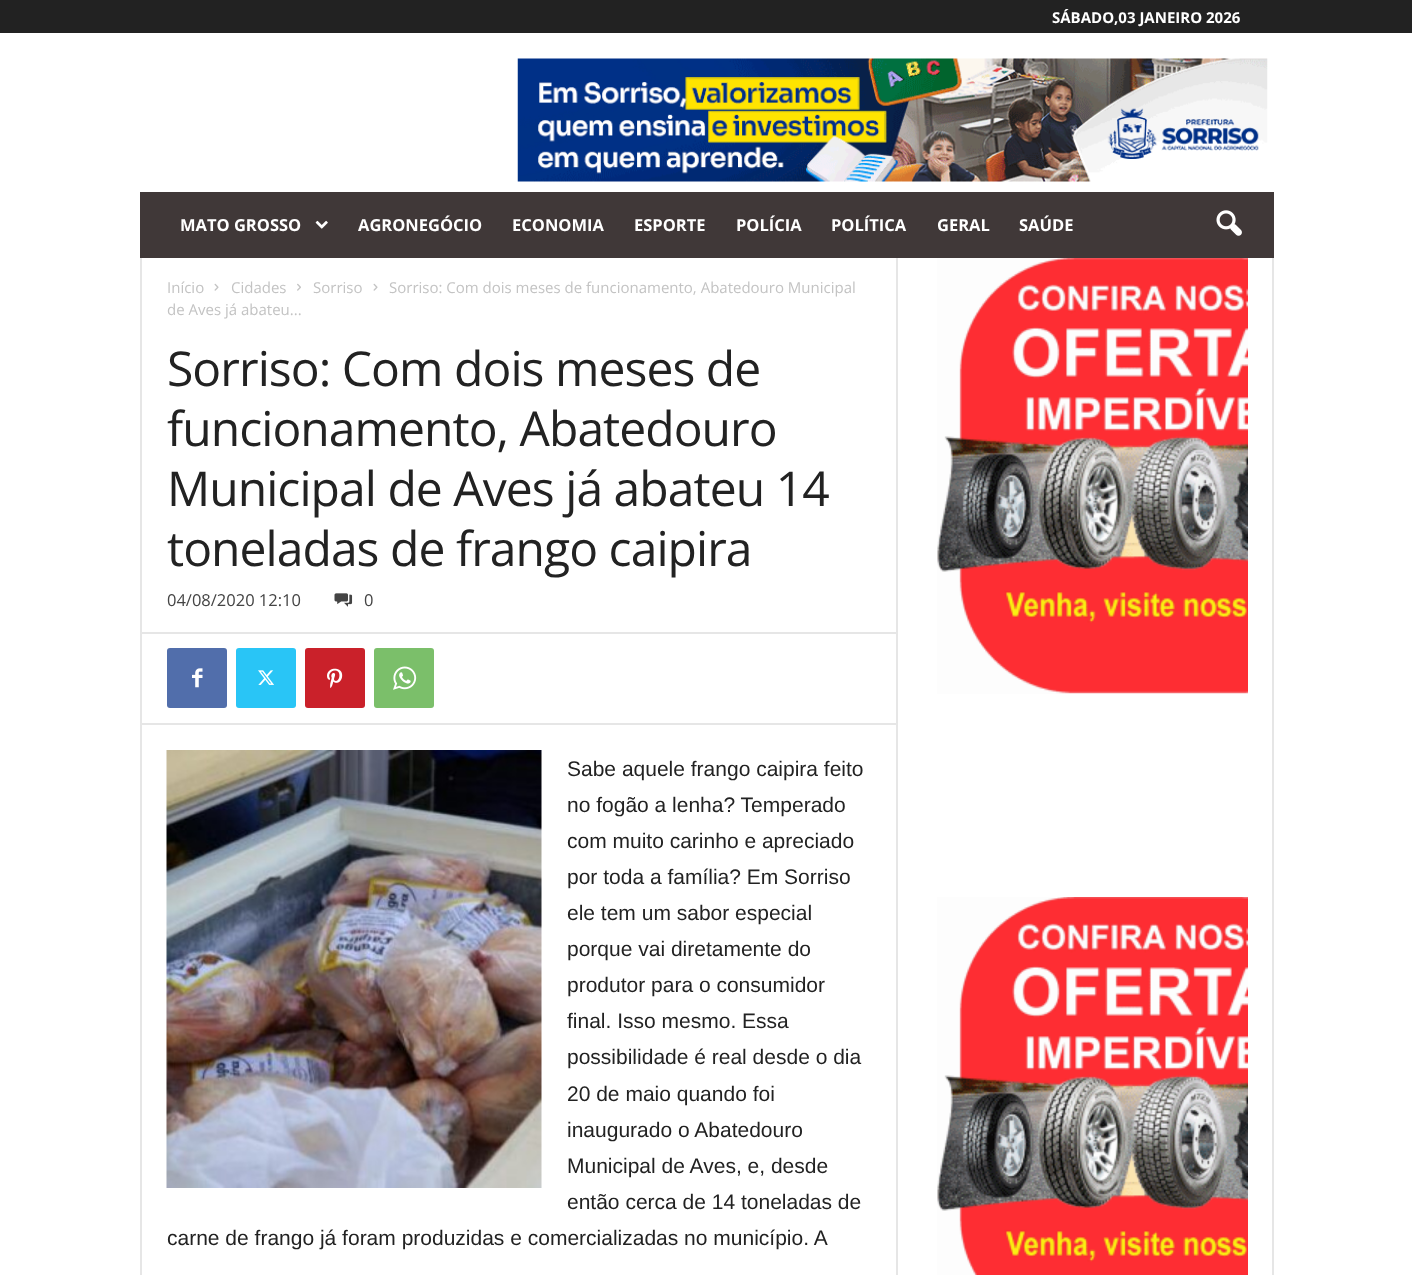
<?xml version="1.0" encoding="UTF-8"?>
<svg xmlns="http://www.w3.org/2000/svg" width="1412" height="1275">
    <rect width="100%" height="100%" fill="#FFFFFF"/>
    <rect x="0" y="0" width="1412" height="33" fill="#222222"/>
    <text x="1052" y="23" font-family="Open Sans" font-size="15" font-weight="700" fill="#FFFFFF">SÁBADO,03 JANEIRO 2026</text>
    <image x="517" y="58" width="751" height="124" href="img_01.png"/>
    <rect x="140" y="192" width="1134" height="66" fill="#403838"/>
    <text x="180" y="231" font-family="Open Sans" font-size="16.5" font-weight="700" fill="#FFFFFF">MATO GROSSO</text>
    <image x="315" y="220" width="13" height="9" href="img_02.png"/>
    <text x="358" y="231" font-family="Open Sans" font-size="16.5" font-weight="700" fill="#FFFFFF">AGRONEGÓCIO</text>
    <text x="512" y="231" font-family="Open Sans" font-size="16.5" font-weight="700" fill="#FFFFFF">ECONOMIA</text>
    <text x="634" y="231" font-family="Open Sans" font-size="16.5" font-weight="700" fill="#FFFFFF">ESPORTE</text>
    <text x="736" y="231" font-family="Open Sans" font-size="16.5" font-weight="700" fill="#FFFFFF">POLÍCIA</text>
    <text x="831" y="231" font-family="Open Sans" font-size="16.5" font-weight="700" fill="#FFFFFF">POLÍTICA</text>
    <text x="937" y="231" font-family="Open Sans" font-size="16.5" font-weight="700" fill="#FFFFFF">GERAL</text>
    <text x="1019" y="231" font-family="Open Sans" font-size="16.5" font-weight="700" fill="#FFFFFF">SAÚDE</text>
    <image x="1216" y="210" width="26" height="26" href="img_03.png"/>
    <rect x="140" y="258" width="2" height="1017" fill="#E6E6E6"/>
    <text x="167" y="293" font-family="Open Sans" font-size="15" fill="#C3C3C3">Início</text>
    <image x="214" y="283" width="5" height="8" href="img_04.png"/>
    <text x="231" y="293" font-family="Open Sans" font-size="15" fill="#C3C3C3">Cidades</text>
    <image x="297" y="283" width="4" height="8" href="img_05.png"/>
    <text x="313" y="293" font-family="Open Sans" font-size="15" fill="#C3C3C3">Sorriso</text>
    <image x="373" y="283" width="5" height="8" href="img_04.png"/>
    <text x="389" y="293" font-family="Open Sans" font-size="15" fill="#C3C3C3">Sorriso: Com dois meses de funcionamento, Abatedouro Municipal</text>
    <text x="167" y="315" font-family="Open Sans" font-size="15" fill="#C3C3C3">de Aves já abateu...</text>
    <text font-family="Open Sans" font-size="48" letter-spacing="-0.95" fill="#222222">
        <tspan x="167" y="386">Sorriso: Com dois meses de</tspan>
        <tspan x="167" y="446">funcionamento, Abatedouro</tspan>
        <tspan x="167" y="506">Municipal de Aves já abateu 14</tspan>
        <tspan x="167" y="566">toneladas de frango caipira</tspan>
    </text>
    <text x="167" y="606" font-family="Open Sans" font-size="16.5" fill="#444444">04/08/2020 12:10</text>
    <image x="334" y="593" width="19" height="14" href="img_06.png"/>
    <text x="364" y="606" font-family="Open Sans" font-size="16.5" fill="#444444">0</text>
    <rect x="141" y="632" width="755" height="2" fill="#E6E6E6"/>
    <rect x="167" y="648" width="60" height="60" rx="3" fill="#516EAB"/>
    <image x="192" y="668" width="11" height="20" href="img_07.png"/>
    <rect x="236" y="648" width="60" height="60" rx="3" fill="#29C5F6"/>
    <image x="258" y="670" width="16" height="15" href="img_08.png"/>
    <rect x="305" y="648" width="60" height="60" rx="3" fill="#CA212A"/>
    <image x="327" y="668" width="16" height="21" href="img_09.png"/>
    <rect x="374" y="648" width="60" height="60" rx="3" fill="#7BBF6A"/>
    <image x="393" y="666" width="24" height="24" href="img_10.png"/>
    <rect x="141" y="723" width="755" height="2" fill="#E6E6E6"/>
    <image x="166" y="750" width="376" height="438" href="img_11.png"/>
    <text font-family="Liberation Sans" font-size="21" fill="#222222">
        <tspan x="567" y="776">Sabe aquele frango caipira feito</tspan>
        <tspan x="567" y="812">no fogão a lenha? Temperado</tspan>
        <tspan x="567" y="848">com muito carinho e apreciado</tspan>
        <tspan x="567" y="884">por toda a família? Em Sorriso</tspan>
        <tspan x="567" y="920">ele tem um sabor especial</tspan>
        <tspan x="567" y="956">porque vai diretamente do</tspan>
        <tspan x="567" y="992">produtor para o consumidor</tspan>
        <tspan x="567" y="1028">final. Isso mesmo. Essa</tspan>
        <tspan x="567" y="1064">possibilidade é real desde o dia</tspan>
        <tspan x="567" y="1101">20 de maio quando foi</tspan>
        <tspan x="567" y="1137">inaugurado o Abatedouro</tspan>
        <tspan x="567" y="1173">Municipal de Aves, e, desde</tspan>
        <tspan x="567" y="1209">então cerca de 14 toneladas de</tspan>
    </text>
    <text x="167" y="1245" font-family="Liberation Sans" font-size="21" fill="#222222">carne de frango já foram produzidas e comercializadas no município. A</text>
    <rect x="896" y="258" width="2" height="1017" fill="#E6E6E6"/>
    <image x="937" y="258" width="311" height="436" href="img_12.png"/>
    <image x="937" y="897" width="311" height="378" href="img_13.png"/>
    <rect x="1272" y="258" width="2" height="1017" fill="#E6E6E6"/>
</svg>
